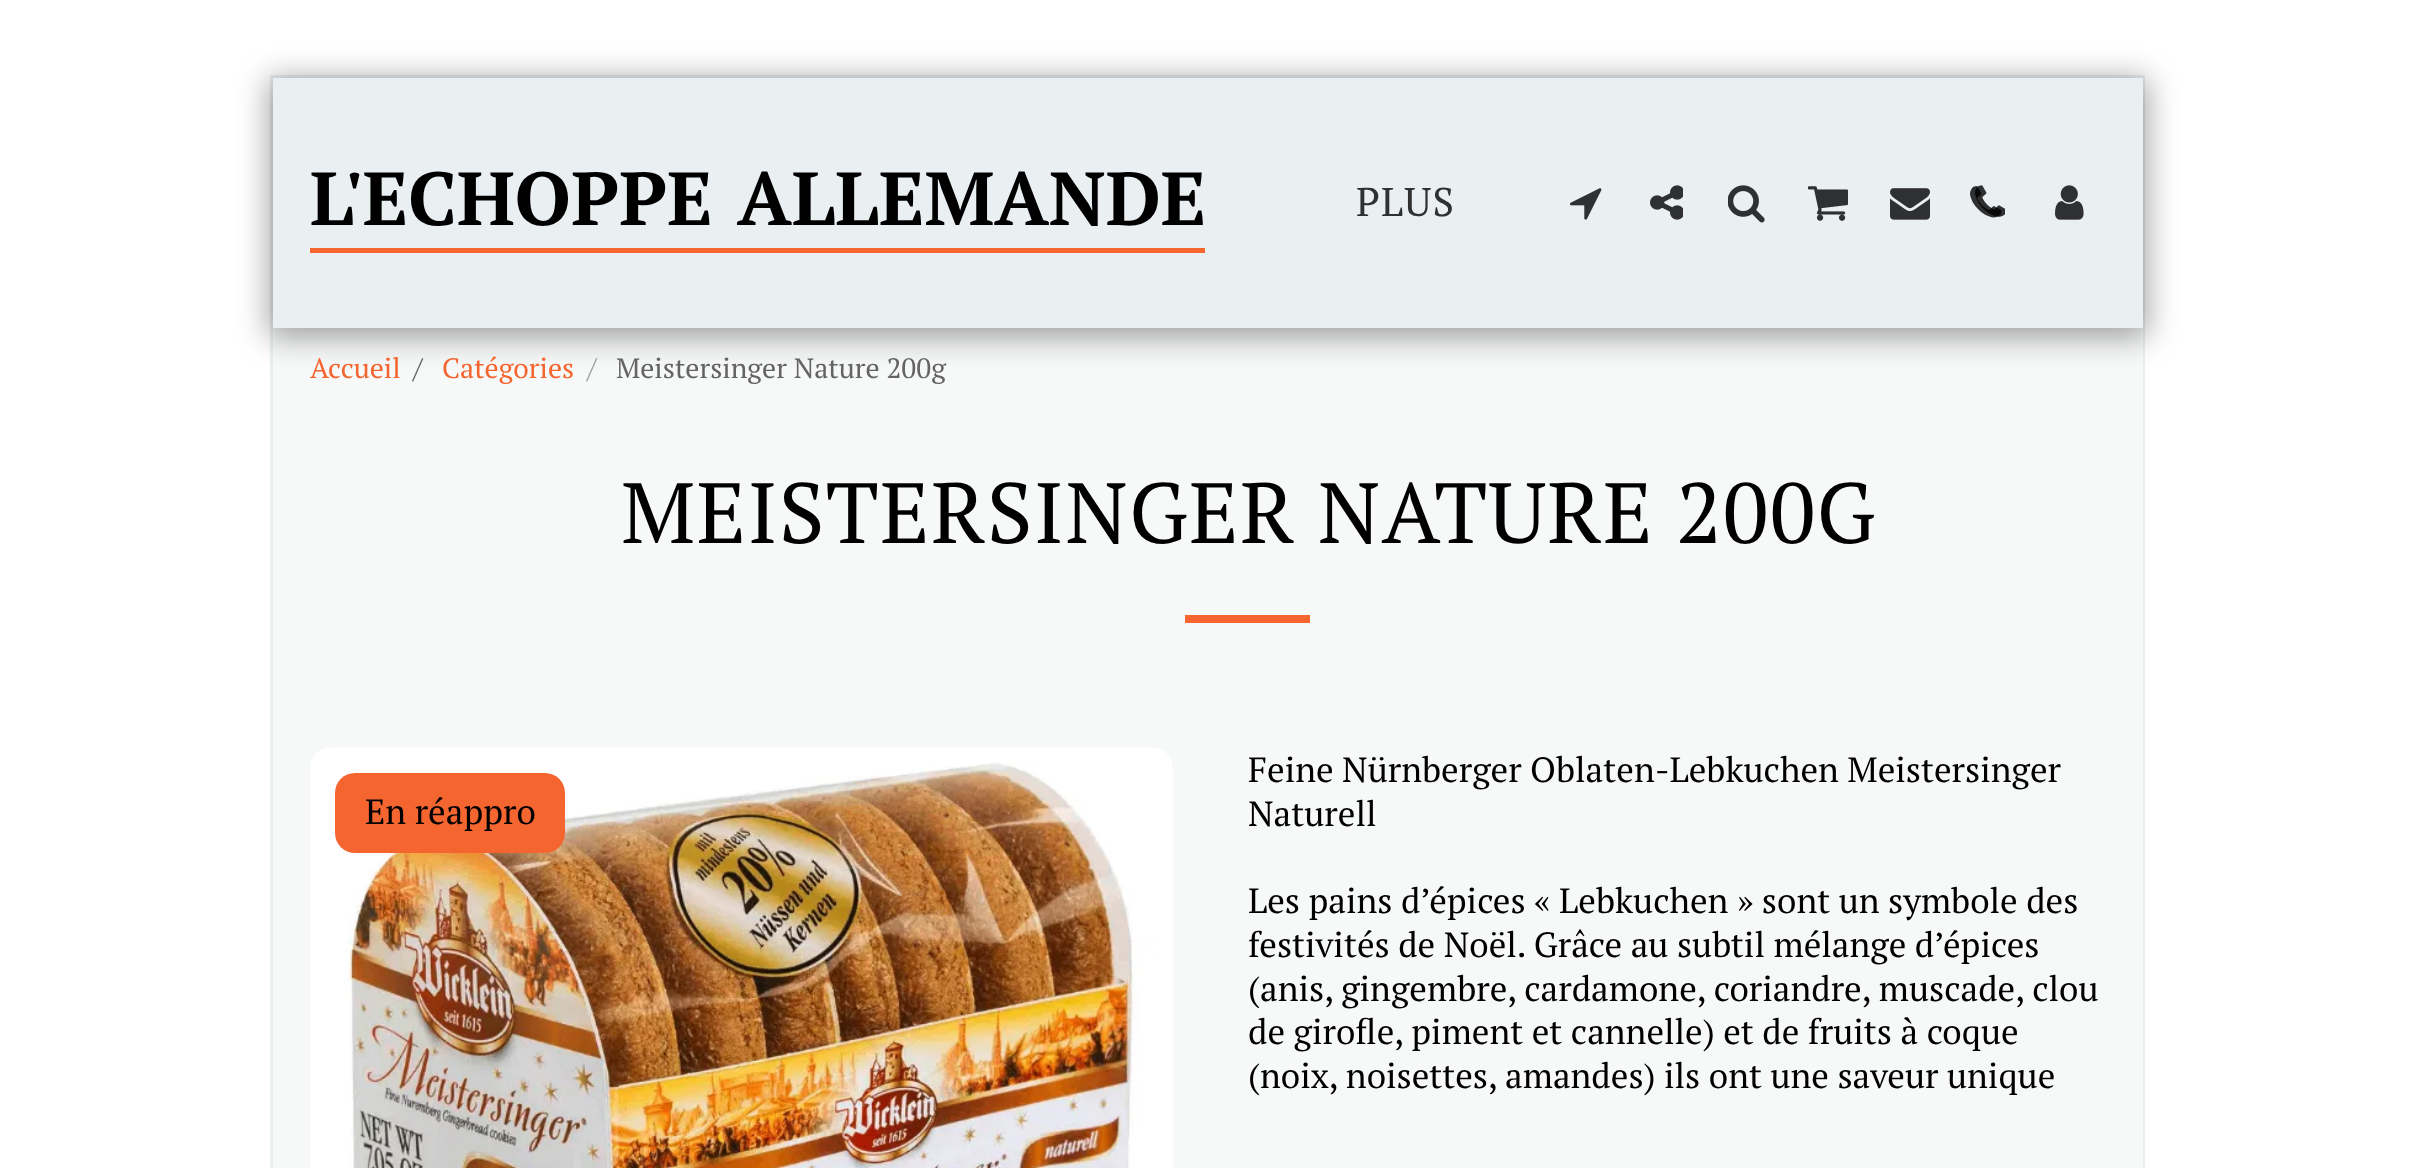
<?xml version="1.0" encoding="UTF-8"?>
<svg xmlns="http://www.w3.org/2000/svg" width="2414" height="1168">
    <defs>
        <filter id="blur1" x="-50%" y="-200%" width="200%" height="500%"><feGaussianBlur stdDeviation="15"/></filter>
    </defs>
    <rect width="100%" height="100%" fill="#FFFFFF"/>
    <rect x="271.5" y="76.5" width="1872" height="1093" fill="none" stroke="#EAEFF2" stroke-width="3"/>
    <rect x="273" y="328" width="1870" height="840" fill="#F7F9F8"/>
    <rect x="268" y="78" width="1880" height="260" fill="#000000" fill-opacity="0.35" filter="url(#blur1)"/>
    <rect x="273" y="78" width="1870" height="250" fill="#EAEFF2"/>
    <rect x="310" y="248" width="895" height="5" fill="#F46530"/>
    <text x="310" y="225" word-spacing="5" font-family="PT Serif" font-size="75" font-weight="700" fill="#000000">L'ECHOPPE ALLEMANDE</text>
    <text x="1356" y="216" font-family="PT Serif" font-size="40" letter-spacing="1.25" fill="#2F3030">PLUS</text>
    <image x="1570" y="188" width="32" height="32" href="img_01.png"/>
    <image x="1650" y="185" width="33" height="35" href="img_02.png"/>
    <image x="1728" y="185" width="37" height="38" href="img_03.png"/>
    <image x="1808" y="186" width="40" height="35" href="img_04.png"/>
    <image x="1890" y="188" width="40" height="32" href="img_05.png"/>
    <image x="1975" y="185" width="30" height="32" href="img_06.png"/>
    <image x="1970" y="186" width="32" height="32" href="img_07.png"/>
    <image x="2055" y="185" width="29" height="35" href="img_08.png"/>
    <text x="310" y="378" font-family="PT Serif" font-size="28" fill="#F46530">Accueil</text>
    <text x="413" y="378" font-family="PT Serif" font-size="28" fill="#636463">/</text>
    <text x="442" y="378" font-family="PT Serif" font-size="28" fill="#F46530">Catégories</text>
    <text x="587" y="378" font-family="PT Serif" font-size="28" fill="#9E9F9F">/</text>
    <text x="616" y="378" font-family="PT Serif" font-size="28" fill="#636463">Meistersinger Nature 200g</text>
    <text x="621" y="543" font-family="PT Serif" font-size="85.5" letter-spacing="1.25" fill="#000000">MEISTERSINGER NATURE 200G</text>
    <rect x="1185" y="615" width="125" height="8" fill="#F46530"/>
    <image x="310" y="747" width="863" height="421" href="img_09.png"/>
    <rect x="335" y="773" width="230" height="80" rx="20" fill="#F46530"/>
    <text x="365" y="824" font-family="PT Serif" font-size="35" fill="#000000">En réappro</text>
    <text font-family="PT Serif" font-size="35" fill="#000000">
        <tspan x="1248" y="782">Feine Nürnberger Oblaten-Lebkuchen Meistersinger</tspan>
        <tspan x="1248" y="826">Naturell</tspan>
    </text>
    <text font-family="PT Serif" font-size="35" fill="#000000">
        <tspan x="1248" y="913">Les pains d’épices « Lebkuchen » sont un symbole des</tspan>
        <tspan x="1248" y="957">festivités de Noël. Grâce au subtil mélange d’épices</tspan>
        <tspan x="1248" y="1001">(anis, gingembre, cardamone, coriandre, muscade, clou</tspan>
        <tspan x="1248" y="1044">de girofle, piment et cannelle) et de fruits à coque</tspan>
        <tspan x="1248" y="1088">(noix, noisettes, amandes) ils ont une saveur unique</tspan>
    </text>
</svg>
